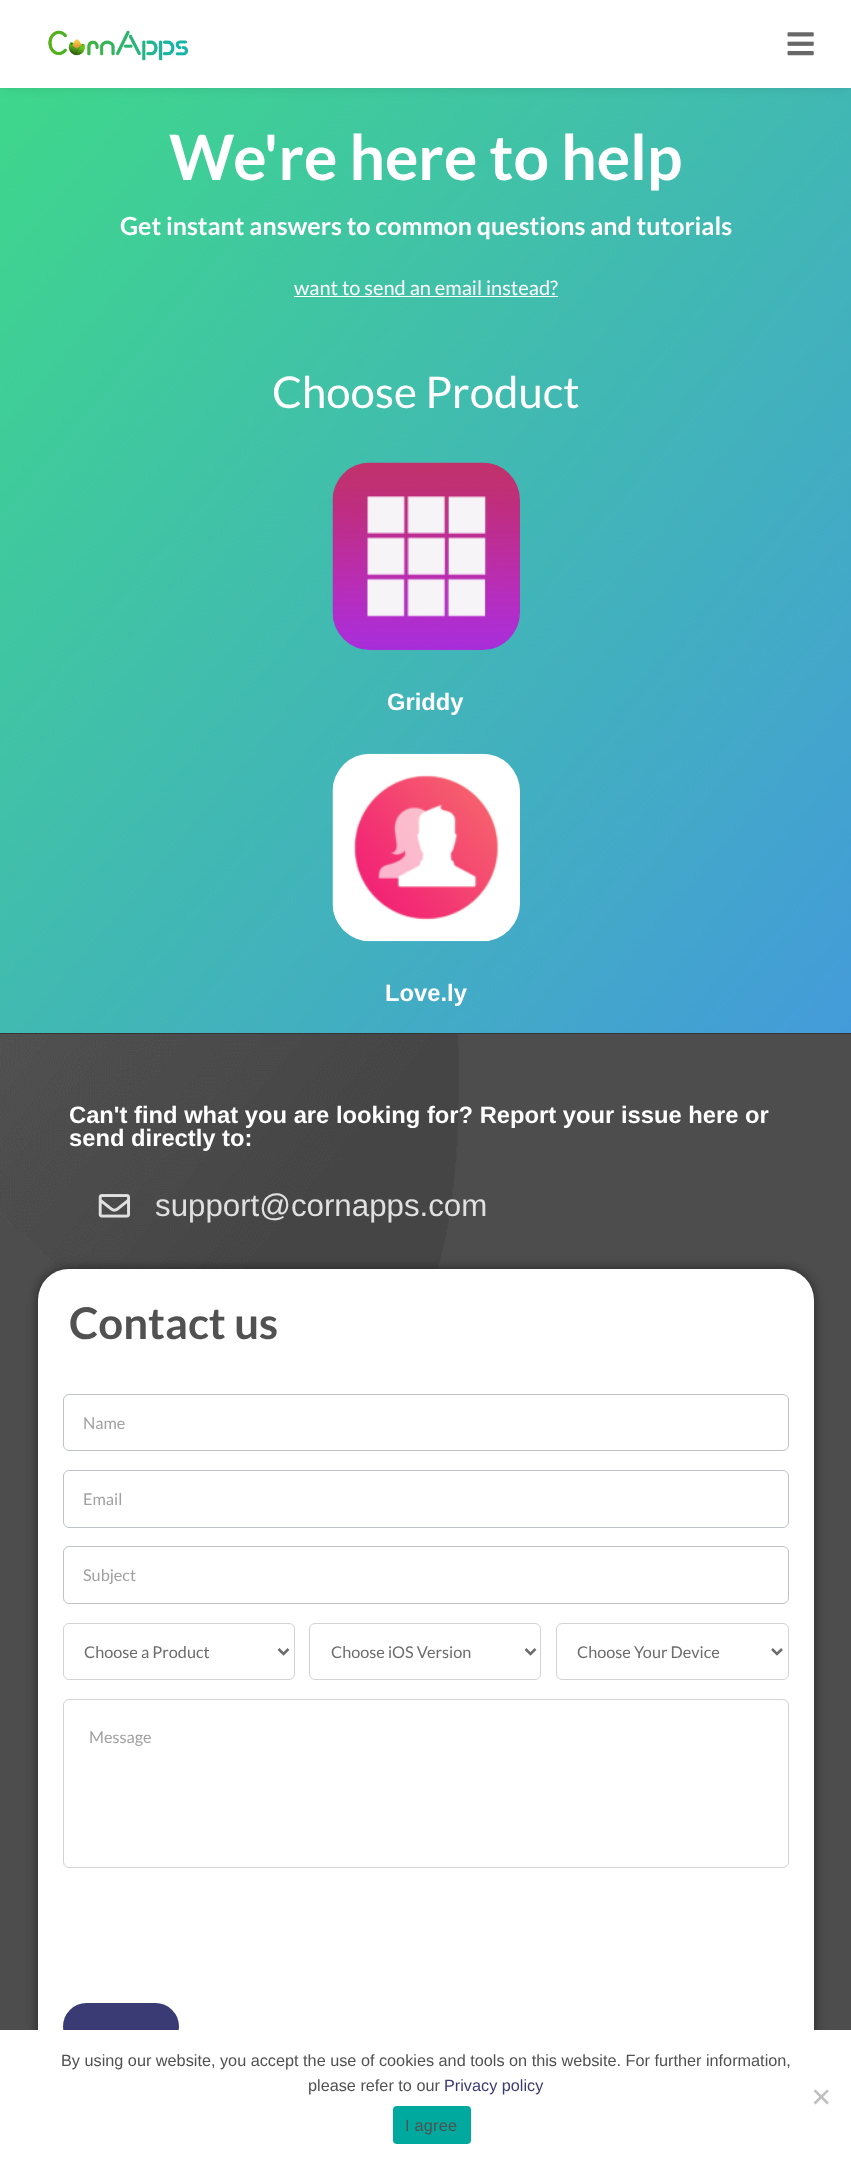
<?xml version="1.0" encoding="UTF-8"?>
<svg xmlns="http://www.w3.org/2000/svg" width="851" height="2162">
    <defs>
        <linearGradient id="g1" gradientUnits="userSpaceOnUse" x1="-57" y1="155" x2="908" y2="965"><stop offset="0" stop-color="#3ED78B"/><stop offset="1" stop-color="#449BDA"/></linearGradient>
        <clipPath id="clip1"><path d="M 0 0 H 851 V 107 H 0 Z M 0 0 H 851 V 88 H 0 Z" clip-rule="evenodd"/></clipPath>
        <filter id="blur1" x="-50%" y="-200%" width="200%" height="500%"><feGaussianBlur stdDeviation="6"/></filter>
    </defs>
    <rect width="100%" height="100%" fill="#FFFFFF"/>
    <rect x="0" y="88" width="851" height="945" fill="url(#g1)"/>
    <g clip-path="url(#clip1)">
        <rect x="0" y="0" width="851" height="88" fill="#000000" fill-opacity="0.1" filter="url(#blur1)"/>
    </g>
    <image x="48" y="30" width="140" height="31" href="img_01.png"/>
    <image x="787" y="32" width="27" height="24" href="img_02.png"/>
    <text x="169" y="180" font-family="Lato" font-size="62.5" font-weight="700" fill="#FFFFFF">We're here to help</text>
    <text x="120" y="235" font-family="Lato" font-size="25" font-weight="700" fill="#FFFFFF">Get instant answers to common questions and tutorials</text>
    <text x="294" y="295" font-family="Lato" font-size="20" fill="#FFFFFF">want to send an email instead?</text>
    <rect x="294" y="296" width="264" height="1" fill="#FFFFFF"/>
    <text x="272" y="408" font-family="Lato" font-size="43.75" fill="#FFFFFF">Choose Product</text>
    <image x="332" y="462" width="188" height="188" href="img_03.png"/>
    <text x="387" y="710" font-family="Liberation Sans" font-size="23.75" font-weight="700" fill="#FFFFFF">Griddy</text>
    <image x="332" y="753" width="188" height="189" href="img_04.png"/>
    <text x="385" y="1001" font-family="Liberation Sans" font-size="23.75" font-weight="700" fill="#FFFFFF">Love.ly</text>
    <rect x="0" y="1033" width="851" height="1" fill="#353535"/>
    <rect x="0" y="1034" width="851" height="996" fill="#4D4D4D"/>
    <image x="0" y="1034" width="460" height="236" href="img_05.png"/>
    <text font-family="Liberation Sans" font-size="23.75" font-weight="700" fill="#FFFFFF">
        <tspan x="69" y="1123">Can't find what you are looking for? Report your issue here or</tspan>
        <tspan x="69" y="1146">send directly to:</tspan>
    </text>
    <image x="98" y="1194" width="32" height="24" href="img_06.png"/>
    <text x="155" y="1216" font-family="Liberation Sans" font-size="31.25" fill="#E0E0E0">support@cornapps.com</text>
    <rect x="38" y="1269" width="776" height="837" rx="31" fill="#000000" fill-opacity="0.5" filter="url(#blur1)"/>
    <rect x="38" y="1269" width="776" height="837" rx="31" fill="#FFFFFF"/>
    <text x="69" y="1339" font-family="Lato" font-size="43.75" font-weight="700" fill="#515151">Contact us</text>
    <rect x="63.5" y="1394.5" width="725" height="56" rx="5.5" fill="none" stroke="#BFC3C8"/>
    <text x="83" y="1429" font-family="Lato" font-size="16.25" fill="#A1A1A1">Name</text>
    <rect x="63.5" y="1470.5" width="725" height="57" rx="5.5" fill="none" stroke="#BFC3C8"/>
    <text x="83" y="1505" font-family="Lato" font-size="16.25" fill="#A1A1A1">Email</text>
    <rect x="63.5" y="1546.5" width="725" height="57" rx="5.5" fill="none" stroke="#BFC3C8"/>
    <text x="83" y="1581" font-family="Lato" font-size="16.25" fill="#A1A1A1">Subject</text>
    <rect x="63.5" y="1623.5" width="231" height="56" rx="5.5" fill="none" stroke="#D3D3D3"/>
    <path d="M 278.5 1649 L 283.5 1654 L 288.5 1649" fill="none" stroke="#6C6C6C" stroke-width="2.5"/>
    <text x="84" y="1658" font-family="Lato" font-size="16.25" fill="#6C6C6C">Choose a Product</text>
    <rect x="309.5" y="1623.5" width="231" height="56" rx="5.5" fill="none" stroke="#D3D3D3"/>
    <path d="M 525.5 1649 L 530.5 1654 L 535.5 1649" fill="none" stroke="#6C6C6C" stroke-width="2.5"/>
    <text x="331" y="1658" font-family="Lato" font-size="16.25" fill="#6C6C6C">Choose iOS Version</text>
    <rect x="556.5" y="1623.5" width="232" height="56" rx="5.5" fill="none" stroke="#D3D3D3"/>
    <path d="M 772 1649 L 777 1654 L 782 1649" fill="none" stroke="#6C6C6C" stroke-width="2.5"/>
    <text x="577" y="1658" font-family="Lato" font-size="16.25" fill="#6C6C6C">Choose Your Device</text>
    <rect x="63.5" y="1699.5" width="725" height="168" rx="5.5" fill="none" stroke="#D3D3D3"/>
    <text x="89" y="1743" font-family="Lato" font-size="16.25" fill="#A1A1A1">Message</text>
    <rect x="63" y="2003" width="116" height="47" rx="23.5" fill="#3A3B74"/>
    <rect x="26" y="2030" width="800" height="88" fill="#FFFFFF"/>
    <text x="61" y="2066" font-family="Liberation Sans" font-size="16.25" fill="#515151">By using our website, you accept the use of cookies and tools on this website. For further information,</text>
    <text x="308" y="2091" font-family="Liberation Sans" font-size="16.25" fill="#515151">please refer to our</text>
    <text x="444" y="2091" font-family="Liberation Sans" font-size="16.25" fill="#3A3B74">Privacy policy</text>
    <path d="M 827 2089.5 L 829 2091 L 815.5 2104.5 L 813.5 2102.5 Z" fill="#C0C0C0"/>
    <path d="M 813.5 2091 L 815.5 2089.5 L 829 2102.5 L 827 2104.5 Z" fill="#C0C0C0"/>
    <rect x="393" y="2106" width="78" height="38" rx="4" fill="#00A99D"/>
    <text x="405" y="2131" font-family="Liberation Sans" font-size="16.25" letter-spacing="0.25" fill="#515151">I agree</text>
</svg>
